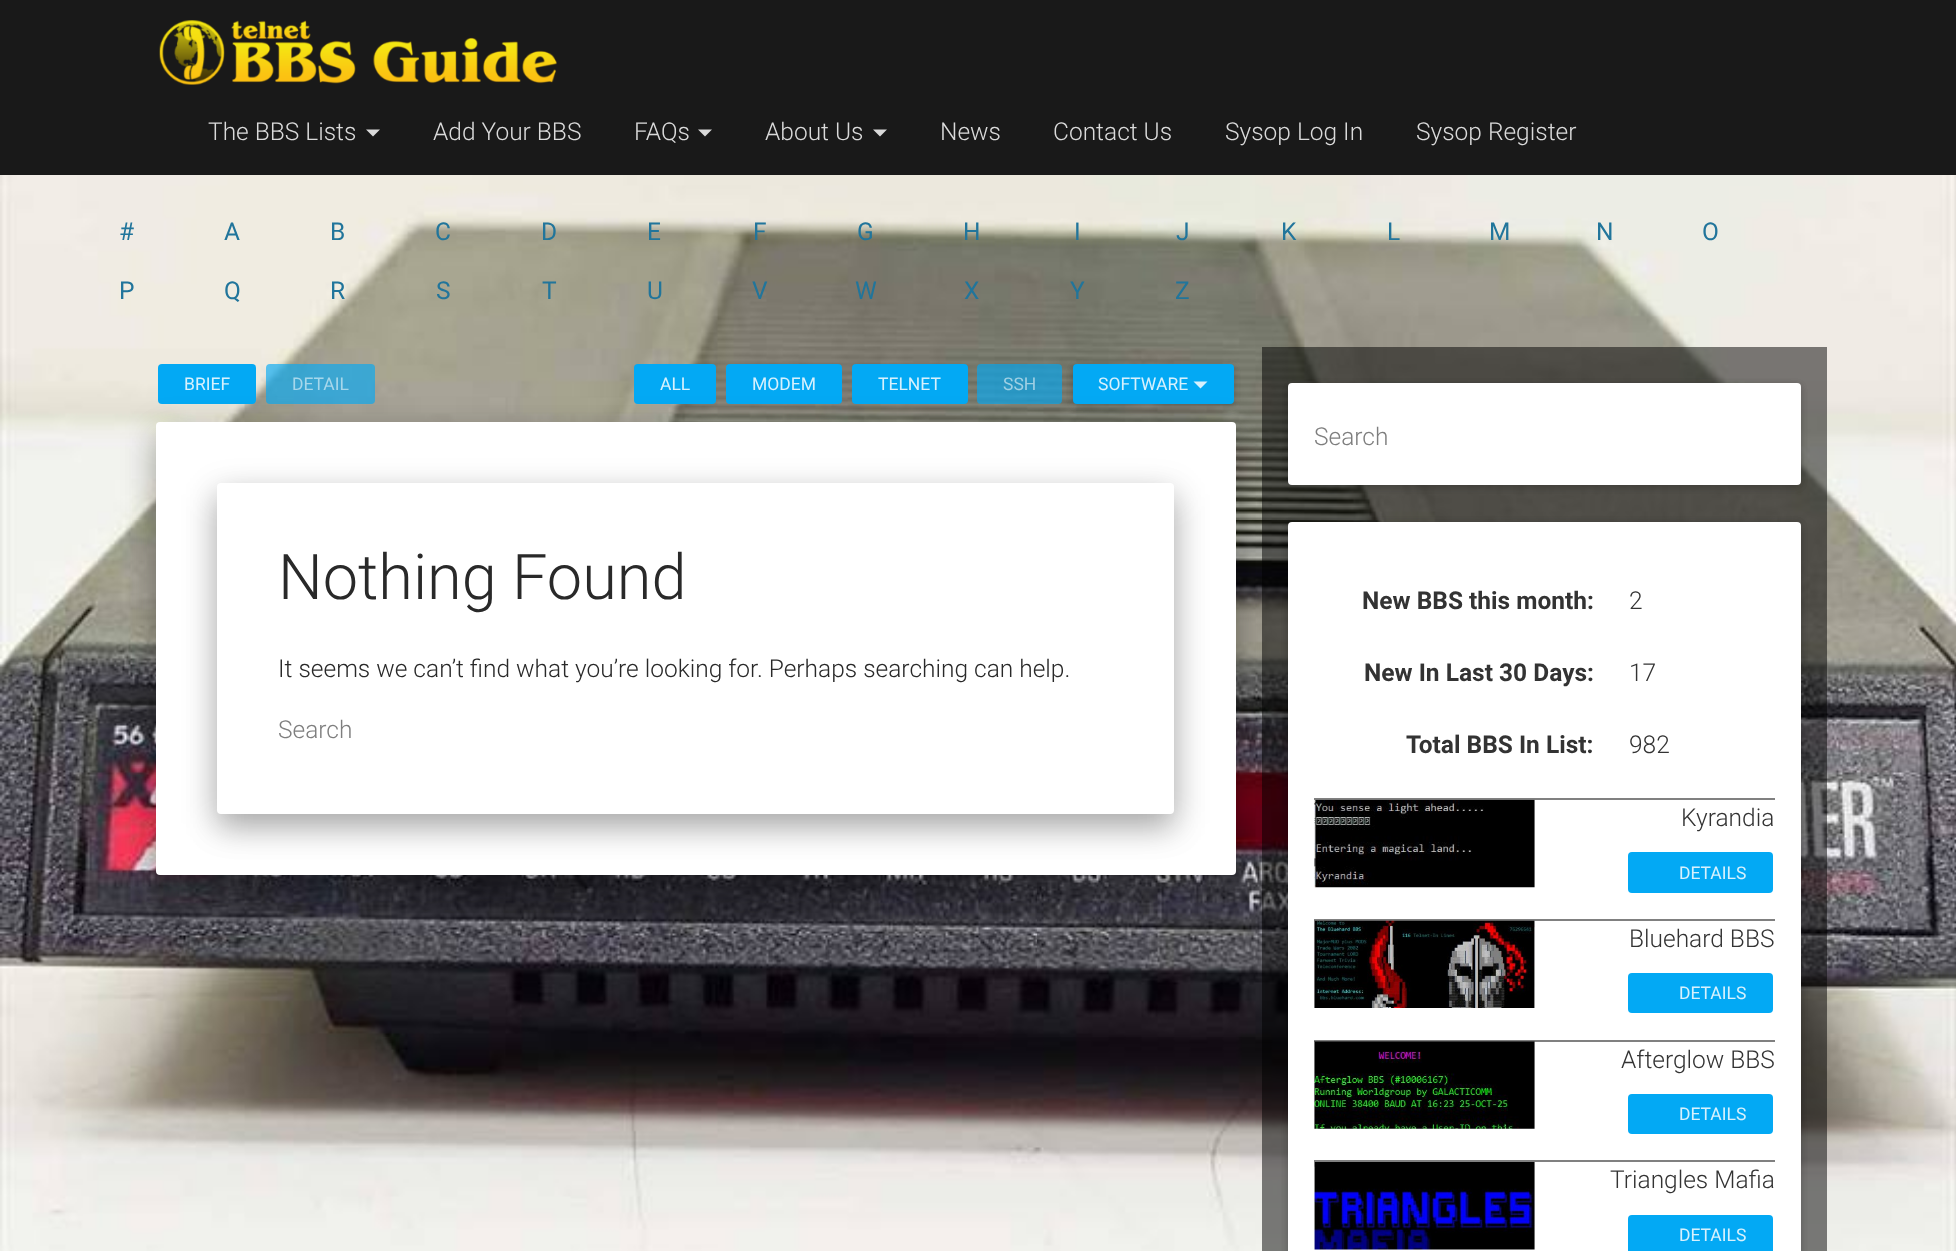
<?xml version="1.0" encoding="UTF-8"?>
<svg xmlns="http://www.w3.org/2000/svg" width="1956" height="1251">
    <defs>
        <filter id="blur1" x="-50%" y="-200%" width="200%" height="500%"><feGaussianBlur stdDeviation="5"/></filter>
        <filter id="blur2" x="-50%" y="-200%" width="200%" height="500%"><feGaussianBlur stdDeviation="17.5"/></filter>
        <filter id="blur3" x="-50%" y="-200%" width="200%" height="500%"><feGaussianBlur stdDeviation="15"/></filter>
    </defs>
    <rect width="100%" height="100%" fill="#FFFFFF"/>
    <image x="0" y="1249" width="1956" height="2" href="img_01.png"/>
    <image x="0" y="175" width="1956" height="1076" href="img_02.png"/>
    <rect x="0" y="0" width="1956" height="175" fill="#191919"/>
    <image x="159" y="20" width="398" height="65" href="img_03.png"/>
    <text x="208" y="140" font-family="Roboto" font-size="24.5" font-weight="300" fill="#DADADA">The BBS Lists</text>
    <path d="M 366 129.5 H 380 L 373 136.5 Z" fill="#DADADA"/>
    <text x="433" y="140" font-family="Roboto" font-size="24.5" font-weight="300" fill="#DADADA">Add Your BBS</text>
    <text x="634" y="140" font-family="Roboto" font-size="24.5" font-weight="300" fill="#DADADA">FAQs</text>
    <path d="M 698 129.5 H 712 L 705 136.5 Z" fill="#DADADA"/>
    <text x="765" y="140" font-family="Roboto" font-size="24.5" font-weight="300" fill="#DADADA">About Us</text>
    <path d="M 873 129.5 H 887 L 880 136.5 Z" fill="#DADADA"/>
    <text x="940" y="140" font-family="Roboto" font-size="24.5" font-weight="300" fill="#DADADA">News</text>
    <text x="1053" y="140" font-family="Roboto" font-size="24.5" font-weight="300" fill="#DADADA">Contact Us</text>
    <text x="1225" y="140" font-family="Roboto" font-size="24.5" font-weight="300" fill="#DADADA">Sysop Log In</text>
    <text x="1416" y="140" font-family="Roboto" font-size="24.5" font-weight="300" fill="#DADADA">Sysop Register</text>
    <text x="119" y="240" font-family="Roboto" font-size="24.5" fill="#21759B">#</text>
    <text x="224" y="240" font-family="Roboto" font-size="24.5" fill="#21759B">A</text>
    <text x="330" y="240" font-family="Roboto" font-size="24.5" fill="#21759B">B</text>
    <text x="435" y="240" font-family="Roboto" font-size="24.5" fill="#21759B">C</text>
    <text x="541" y="240" font-family="Roboto" font-size="24.5" fill="#21759B">D</text>
    <text x="647" y="240" font-family="Roboto" font-size="24.5" fill="#21759B">E</text>
    <text x="753" y="240" font-family="Roboto" font-size="24.5" fill="#21759B">F</text>
    <text x="857" y="240" font-family="Roboto" font-size="24.5" fill="#21759B">G</text>
    <text x="963" y="240" font-family="Roboto" font-size="24.5" fill="#21759B">H</text>
    <text x="1074" y="240" font-family="Roboto" font-size="24.5" fill="#21759B">I</text>
    <text x="1176" y="240" font-family="Roboto" font-size="24.5" fill="#21759B">J</text>
    <text x="1281" y="240" font-family="Roboto" font-size="24.5" fill="#21759B">K</text>
    <text x="1387" y="240" font-family="Roboto" font-size="24.5" fill="#21759B">L</text>
    <text x="1489" y="240" font-family="Roboto" font-size="24.5" fill="#21759B">M</text>
    <text x="1596" y="240" font-family="Roboto" font-size="24.5" fill="#21759B">N</text>
    <text x="1702" y="240" font-family="Roboto" font-size="24.5" fill="#21759B">O</text>
    <text x="119" y="299" font-family="Roboto" font-size="24.5" fill="#21759B">P</text>
    <text x="224" y="299" font-family="Roboto" font-size="24.5" fill="#21759B">Q</text>
    <text x="330" y="299" font-family="Roboto" font-size="24.5" fill="#21759B">R</text>
    <text x="436" y="299" font-family="Roboto" font-size="24.5" fill="#21759B">S</text>
    <text x="542" y="299" font-family="Roboto" font-size="24.5" fill="#21759B">T</text>
    <text x="647" y="299" font-family="Roboto" font-size="24.5" fill="#21759B">U</text>
    <text x="752" y="299" font-family="Roboto" font-size="24.5" fill="#21759B">V</text>
    <text x="855" y="299" font-family="Roboto" font-size="24.5" fill="#21759B">W</text>
    <text x="964" y="299" font-family="Roboto" font-size="24.5" fill="#21759B">X</text>
    <text x="1070" y="299" font-family="Roboto" font-size="24.5" fill="#21759B">Y</text>
    <text x="1175" y="299" font-family="Roboto" font-size="24.5" fill="#21759B">Z</text>
    <rect x="158" y="364" width="98" height="40" rx="4" fill="#03A9F4"/>
    <text x="184" y="390" font-family="Roboto" font-size="17.5" fill="#D7F1FD">BRIEF</text>
    <rect x="266" y="364" width="109" height="40" rx="4" fill="#03A9F4" fill-opacity="0.65"/>
    <text x="292" y="390" font-family="Roboto" font-size="17.5" fill="#A6D7EB">DETAIL</text>
    <rect x="634" y="364" width="82" height="40" rx="4" fill="#03A9F4"/>
    <text x="660" y="390" font-family="Roboto" font-size="17.5" fill="#D7F1FD">ALL</text>
    <rect x="726" y="364" width="116" height="40" rx="4" fill="#03A9F4"/>
    <text x="752" y="390" font-family="Roboto" font-size="17.5" fill="#D7F1FD">MODEM</text>
    <rect x="852" y="364" width="116" height="40" rx="4" fill="#03A9F4"/>
    <text x="878" y="390" font-family="Roboto" font-size="17.5" fill="#D7F1FD">TELNET</text>
    <rect x="977" y="364" width="85" height="40" rx="4" fill="#03A9F4" fill-opacity="0.65"/>
    <text x="1003" y="390" font-family="Roboto" font-size="17.5" fill="#9FD0E4">SSH</text>
    <rect x="1073" y="366" width="161" height="40" rx="4" fill="#000000" fill-opacity="0.12" filter="url(#blur1)"/>
    <rect x="1073" y="366" width="161" height="40" rx="4" fill="#000000" fill-opacity="0.12" filter="url(#blur1)"/>
    <rect x="1073" y="364" width="161" height="40" rx="4" fill="#03A9F4"/>
    <text x="1098" y="390" font-family="Roboto" font-size="17.5" fill="#D7F1FD">SOFTWARE</text>
    <path d="M 1193.5 381.5 H 1207.5 L 1200.5 388.5 Z" fill="#D7F1FD"/>
    <rect x="156" y="432" width="1080" height="454" rx="4" fill="#000000" fill-opacity="0.19" filter="url(#blur2)"/>
    <rect x="156" y="436" width="1080" height="453" rx="4" fill="#000000" fill-opacity="0.2" filter="url(#blur3)"/>
    <rect x="156" y="422" width="1080" height="453" rx="4" fill="#FFFFFF"/>
    <rect x="217" y="494" width="957" height="330" rx="4" fill="#000000" fill-opacity="0.19" filter="url(#blur2)"/>
    <rect x="217" y="497" width="957" height="331" rx="4" fill="#000000" fill-opacity="0.2" filter="url(#blur3)"/>
    <rect x="217" y="483" width="957" height="331" rx="4" fill="#FFFFFF"/>
    <text x="278" y="599" font-family="Roboto" font-size="63" font-weight="300" fill="#292929">Nothing Found</text>
    <text x="278" y="677" font-family="Roboto" font-size="24.5" font-weight="300" fill="#292929">It seems we can’t find what you’re looking for. Perhaps searching can help.</text>
    <text x="278" y="738" font-family="Roboto" font-size="24.5" font-weight="300" fill="#7E7E7E">Search</text>
    <rect x="1262" y="347" width="565" height="904" fill="#000000" fill-opacity="0.5"/>
    <rect x="1288" y="385" width="513" height="102" rx="4" fill="#000000" fill-opacity="0.12" filter="url(#blur1)"/>
    <rect x="1288" y="385" width="513" height="102" rx="4" fill="#000000" fill-opacity="0.12" filter="url(#blur1)"/>
    <rect x="1288" y="383" width="513" height="102" rx="4" fill="#FFFFFF"/>
    <text x="1314" y="445" font-family="Roboto" font-size="24.5" font-weight="300" fill="#7E7E7E">Search</text>
    <rect x="1288" y="523" width="513" height="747" rx="4" fill="#000000" fill-opacity="0.12" filter="url(#blur1)"/>
    <rect x="1288" y="523" width="513" height="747" rx="4" fill="#000000" fill-opacity="0.12" filter="url(#blur1)"/>
    <rect x="1288" y="522" width="513" height="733" rx="4" fill="#FFFFFF"/>
    <text x="1362" y="609" font-family="Roboto" font-size="24.5" font-weight="700" fill="#333333">New BBS this month:</text>
    <text x="1629" y="609" font-family="Roboto" font-size="24.5" font-weight="300" fill="#333333">2</text>
    <text x="1364" y="681" font-family="Roboto" font-size="24.5" font-weight="700" fill="#333333">New In Last 30 Days:</text>
    <text x="1629" y="681" font-family="Roboto" font-size="24.5" font-weight="300" fill="#333333">17</text>
    <text x="1406" y="753" font-family="Roboto" font-size="24.5" font-weight="700" fill="#333333">Total BBS In List:</text>
    <text x="1629" y="753" font-family="Roboto" font-size="24.5" font-weight="300" fill="#333333">982</text>
    <rect x="1314" y="798" width="461" height="2" fill="#808080"/>
    <image x="1314" y="799" width="221" height="89" href="img_04.png"/>
    <text x="1681" y="826" font-family="Roboto" font-size="24.5" font-weight="300" fill="#333333">Kyrandia</text>
    <rect x="1628" y="852" width="145" height="41" rx="4" fill="#03A9F4"/>
    <text x="1679" y="879" font-family="Roboto" font-size="17.5" fill="#D7F1FD">DETAILS</text>
    <rect x="1314" y="919" width="461" height="2" fill="#808080"/>
    <image x="1314" y="920" width="221" height="88" href="img_05.png"/>
    <text x="1629" y="947" font-family="Roboto" font-size="24.5" font-weight="300" fill="#333333">Bluehard BBS</text>
    <rect x="1628" y="973" width="145" height="40" rx="4" fill="#03A9F4"/>
    <text x="1679" y="999" font-family="Roboto" font-size="17.5" fill="#D7F1FD">DETAILS</text>
    <rect x="1314" y="1040" width="461" height="2" fill="#808080"/>
    <image x="1314" y="1041" width="221" height="88" href="img_06.png"/>
    <text x="1621" y="1068" font-family="Roboto" font-size="24.5" font-weight="300" fill="#333333">Afterglow BBS</text>
    <rect x="1628" y="1094" width="145" height="40" rx="4" fill="#03A9F4"/>
    <text x="1679" y="1120" font-family="Roboto" font-size="17.5" fill="#D7F1FD">DETAILS</text>
    <rect x="1314" y="1160" width="461" height="2" fill="#808080"/>
    <image x="1314" y="1162" width="221" height="88" href="img_07.png"/>
    <text x="1610" y="1188" font-family="Roboto" font-size="24.5" font-weight="300" fill="#333333">Triangles Mafia</text>
    <rect x="1628" y="1215" width="145" height="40" rx="4" fill="#03A9F4"/>
    <text x="1679" y="1241" font-family="Roboto" font-size="17.5" fill="#D7F1FD">DETAILS</text>
</svg>
